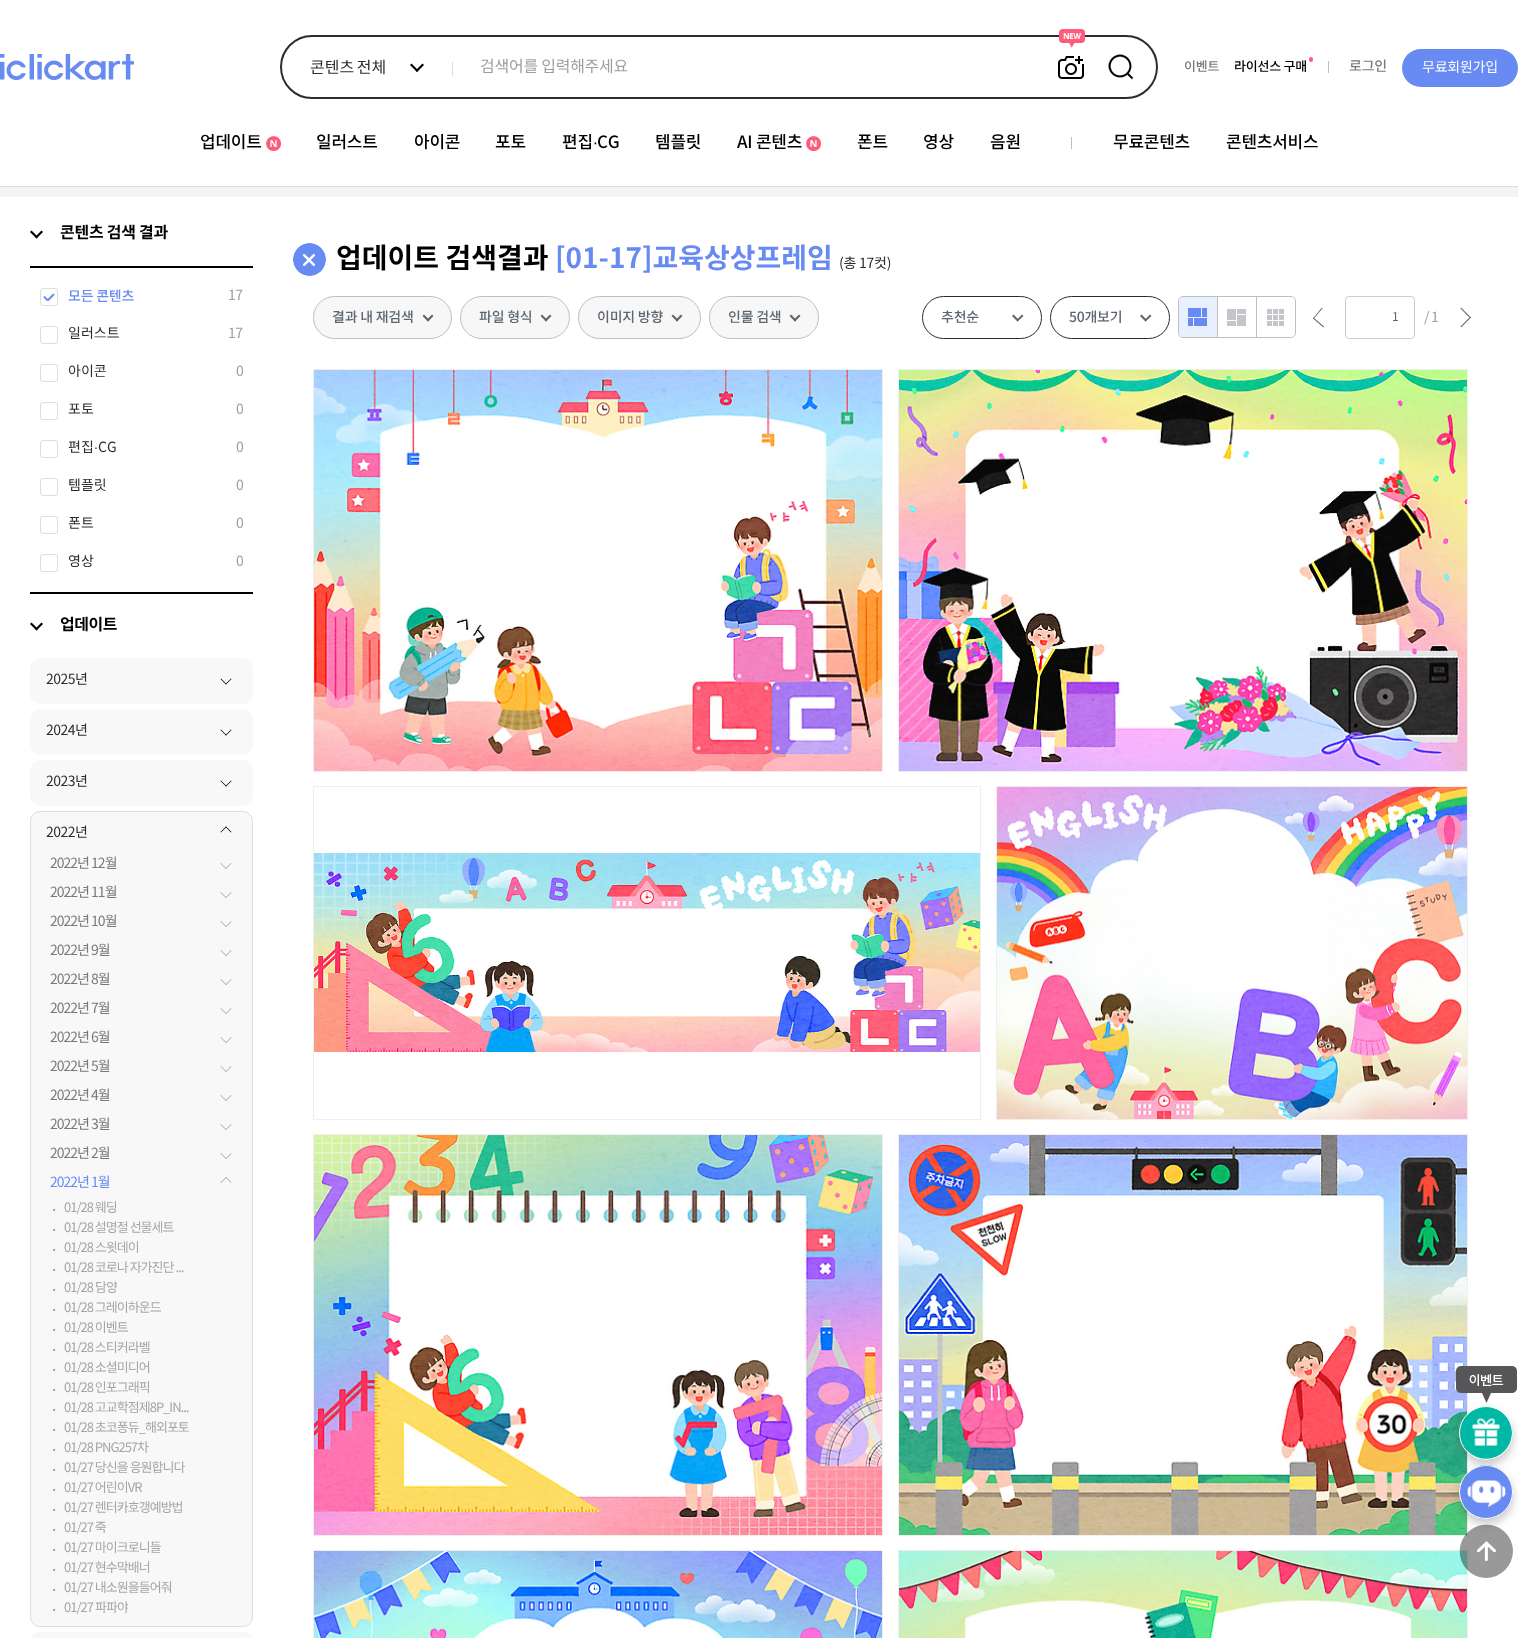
<?xml version="1.0" encoding="UTF-8"?>
<svg xmlns="http://www.w3.org/2000/svg" width="1518" height="1638">
    <defs>
        <clipPath id="clip1"><rect x="64" y="1279" width="53" height="20"/></clipPath>
        <clipPath id="clip2"><rect x="64" y="1599" width="64" height="20"/></clipPath>
        <filter id="blur1" x="-50%" y="-200%" width="200%" height="500%"><feGaussianBlur stdDeviation="4"/></filter>
    </defs>
    <rect width="100%" height="100%" fill="#FFFFFF"/>
    <image x="0" y="54" width="134" height="26" href="img_01.png"/>
    <rect x="281" y="36" width="876" height="62" rx="31" fill="none" stroke="#2B2C2D" stroke-width="2"/>
    <image x="1059" y="29" width="26" height="19" href="img_02.png"/>
    <text x="310" y="73" word-spacing="-1" font-family="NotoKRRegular" font-size="16" fill="#2B2C2D">콘텐츠 전체</text>
    <path d="M 422.5 63.5 L 424 65 L 417 72 L 415.5 70.5 Z" fill="#000000"/>
    <path d="M 411.5 63.5 L 418.5 70.5 L 417 72 L 410 65 Z" fill="#000000"/>
    <rect x="452" y="62" width="1" height="14" fill="#DDDDDD"/>
    <text x="480" y="72" font-family="NotoKRRegular" font-size="16" letter-spacing="-0.25" fill="#9C9EA4">검색어를 입력해주세요</text>
    <image x="1058" y="56" width="26" height="23" href="img_03.png"/>
    <image x="1108" y="54" width="26" height="26" href="img_04.png"/>
    <text x="1184" y="71" font-family="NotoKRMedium" font-size="13" font-weight="500" letter-spacing="-0.25" fill="#797979">이벤트</text>
    <text x="1234" y="71" font-family="NotoKRMedium" font-size="13" font-weight="500" letter-spacing="-0.25" fill="#000000">라이선스 구매</text>
    <rect x="1309" y="57" width="4" height="5" rx="2" fill="#FF5B7A"/>
    <rect x="1328" y="61" width="1" height="12" fill="#BFBFBF"/>
    <text x="1349" y="71" font-family="NotoKRMedium" font-size="14" font-weight="500" letter-spacing="-0.25" fill="#797979">로그인</text>
    <rect x="1402" y="49" width="116" height="38" rx="19" fill="#678AF3"/>
    <text x="1422" y="72" font-family="NotoKRRegular" font-size="14" letter-spacing="-0.25" fill="#FFFFFF">무료회원가입</text>
    <text x="200" y="148" font-family="NotoKRMedium" font-size="17" font-weight="500" letter-spacing="-0.25" fill="#000000">업데이트</text>
    <image x="266" y="136" width="15" height="15" href="img_05.png"/>
    <text x="316" y="148" font-family="NotoKRMedium" font-size="17" font-weight="500" letter-spacing="-0.25" fill="#000000">일러스트</text>
    <text x="414" y="148" font-family="NotoKRMedium" font-size="17" font-weight="500" letter-spacing="-0.25" fill="#000000">아이콘</text>
    <text x="495" y="148" font-family="NotoKRMedium" font-size="17" font-weight="500" letter-spacing="-0.25" fill="#000000">포토</text>
    <text x="562" y="148" font-family="NotoKRMedium" font-size="17" font-weight="500" letter-spacing="-0.25" fill="#000000">편집</text>
    <text x="593" y="148" font-family="Liberation Sans" font-size="17" letter-spacing="-0.25" fill="#000000">∙</text>
    <text x="597" y="148" font-family="NotoKRMedium" font-size="17" font-weight="500" letter-spacing="-0.25" fill="#000000">CG</text>
    <text x="655" y="148" font-family="NotoKRMedium" font-size="17" font-weight="500" letter-spacing="-0.25" fill="#000000">템플릿</text>
    <text x="737" y="148" font-family="NotoKRMedium" font-size="17" font-weight="500" letter-spacing="-0.25" fill="#000000">AI 콘텐츠</text>
    <image x="806" y="136" width="15" height="15" href="img_05.png"/>
    <text x="857" y="148" font-family="NotoKRMedium" font-size="17" font-weight="500" letter-spacing="-0.25" fill="#000000">폰트</text>
    <text x="923" y="148" font-family="NotoKRMedium" font-size="17" font-weight="500" letter-spacing="-0.25" fill="#000000">영상</text>
    <text x="990" y="148" font-family="NotoKRMedium" font-size="17" font-weight="500" letter-spacing="-0.25" fill="#000000">음원</text>
    <rect x="1071" y="137" width="1" height="12" fill="#BFBFBF"/>
    <text x="1113" y="148" font-family="NotoKRMedium" font-size="17" font-weight="500" letter-spacing="-0.25" fill="#000000">무료콘텐츠</text>
    <text x="1226" y="148" font-family="NotoKRMedium" font-size="17" font-weight="500" letter-spacing="-0.25" fill="#000000">콘텐츠서비스</text>
    <rect x="0" y="187" width="1518" height="10" fill="#F1F3F5"/>
    <rect x="0" y="186" width="1518" height="1" fill="#DDDDDD"/>
    <rect x="30" y="592" width="223" height="2" fill="#000000"/>
    <path d="M 41.5 230.5 L 43 232 L 36.5 238.5 L 35 237 Z" fill="#000000"/>
    <path d="M 31.5 230.5 L 38 237 L 36.5 238.5 L 30 232 Z" fill="#000000"/>
    <text x="60" y="238" font-family="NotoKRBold" font-size="16" font-weight="700" letter-spacing="-0.25" fill="#000000">콘텐츠 검색 결과</text>
    <rect x="30" y="266" width="223" height="2" fill="#000000"/>
    <image x="40" y="288" width="18" height="18" href="img_06.png"/>
    <text x="68" y="301" font-family="NotoKRMedium" font-size="14" font-weight="500" letter-spacing="-0.25" fill="#678AF3">모든 콘텐츠</text>
    <text x="228" y="300" font-family="NotoKRRegular" font-size="14" letter-spacing="-0.5" fill="#9C9EA4">17</text>
    <image x="40" y="326" width="18" height="18" href="img_07.png"/>
    <text x="68" y="338" font-family="NotoKRRegular" font-size="14" fill="#2B2C2D">일러스트</text>
    <text x="228" y="338" font-family="NotoKRRegular" font-size="14" letter-spacing="-0.5" fill="#9C9EA4">17</text>
    <image x="40" y="364" width="18" height="18" href="img_07.png"/>
    <text x="68" y="376" font-family="NotoKRRegular" font-size="14" fill="#2B2C2D">아이콘</text>
    <text x="236" y="376" font-family="NotoKRRegular" font-size="14" letter-spacing="-0.5" fill="#9C9EA4">0</text>
    <image x="40" y="402" width="18" height="18" href="img_07.png"/>
    <text x="68" y="414" font-family="NotoKRRegular" font-size="14" fill="#2B2C2D">포토</text>
    <text x="236" y="414" font-family="NotoKRRegular" font-size="14" letter-spacing="-0.5" fill="#9C9EA4">0</text>
    <image x="40" y="440" width="18" height="18" href="img_07.png"/>
    <text x="68" y="452" font-family="NotoKRRegular" font-size="14" fill="#2B2C2D">편집</text>
    <text x="94" y="452" font-family="Liberation Sans" font-size="14" fill="#2B2C2D">∙</text>
    <text x="98" y="452" font-family="NotoKRRegular" font-size="14" fill="#2B2C2D">CG</text>
    <text x="236" y="452" font-family="NotoKRRegular" font-size="14" letter-spacing="-0.5" fill="#9C9EA4">0</text>
    <image x="40" y="478" width="18" height="18" href="img_07.png"/>
    <text x="68" y="490" font-family="NotoKRRegular" font-size="14" fill="#2B2C2D">템플릿</text>
    <text x="236" y="490" font-family="NotoKRRegular" font-size="14" letter-spacing="-0.5" fill="#9C9EA4">0</text>
    <image x="40" y="516" width="18" height="18" href="img_07.png"/>
    <text x="68" y="528" font-family="NotoKRRegular" font-size="14" fill="#2B2C2D">폰트</text>
    <text x="236" y="528" font-family="NotoKRRegular" font-size="14" letter-spacing="-0.5" fill="#9C9EA4">0</text>
    <image x="40" y="554" width="18" height="18" href="img_07.png"/>
    <text x="68" y="566" font-family="NotoKRRegular" font-size="14" fill="#2B2C2D">영상</text>
    <text x="236" y="566" font-family="NotoKRRegular" font-size="14" letter-spacing="-0.5" fill="#9C9EA4">0</text>
    <path d="M 41.5 622.5 L 43 624 L 36.5 630.5 L 35 629 Z" fill="#000000"/>
    <path d="M 31.5 622.5 L 38 629 L 36.5 630.5 L 30 624 Z" fill="#000000"/>
    <text x="60" y="630" font-family="NotoKRBold" font-size="16" font-weight="700" letter-spacing="-0.5" fill="#000000">업데이트</text>
    <rect x="30" y="658" width="223" height="46" rx="10" fill="#F8F8F8"/>
    <text x="46" y="684" font-family="NotoKRRegular" font-size="14" letter-spacing="-0.5" fill="#2B2C2D">2025년</text>
    <path d="M 231 678.5 L 231.5 679 L 226 684.5 L 225.5 684 Z" fill="#000000"/>
    <rect x="30" y="709" width="223" height="46" rx="10" fill="#F8F8F8"/>
    <path d="M 221 678.5 L 226.5 684 L 226 684.5 L 220.5 679 Z M 231 729.5 L 231.5 730 L 226 735.5 L 225.5 735 Z" fill="#000000"/>
    <text x="46" y="735" font-family="NotoKRRegular" font-size="14" letter-spacing="-0.5" fill="#2B2C2D">2024년</text>
    <rect x="30" y="760" width="223" height="46" rx="10" fill="#F8F8F8"/>
    <path d="M 221 729.5 L 226.5 735 L 226 735.5 L 220.5 730 Z M 231 780.5 L 231.5 781 L 226 786.5 L 225.5 786 Z" fill="#000000"/>
    <text x="46" y="786" font-family="NotoKRRegular" font-size="14" letter-spacing="-0.5" fill="#2B2C2D">2023년</text>
    <rect x="30.5" y="811.5" width="222" height="815" rx="9.5" fill="#F8F8F8" stroke="#DDDDDD"/>
    <path d="M 221 780.5 L 226.5 786 L 226 786.5 L 220.5 781 Z M 221 832.5 L 220.5 832 L 226 826.5 L 226.5 827 Z" fill="#000000"/>
    <text x="46" y="837" font-family="NotoKRRegular" font-size="14" letter-spacing="-0.5" fill="#2B2C2D">2022년</text>
    <path d="M 231 832.5 L 225.5 827 L 226 826.5 L 231.5 832 Z" fill="#000000"/>
    <text x="50" y="868" font-family="NotoKRRegular" font-size="14" letter-spacing="-1" fill="#797979">2022년 12월</text>
    <path d="M 231 863 L 231.5 863.5 L 226 869 L 225.5 868.5 Z" fill="#A5A5A5"/>
    <path d="M 221 863 L 226.5 868.5 L 226 869 L 220.5 863.5 Z M 231 892 L 231.5 892.5 L 226 898 L 225.5 897.5 Z" fill="#A5A5A5"/>
    <text x="50" y="897" font-family="NotoKRRegular" font-size="14" letter-spacing="-1" fill="#797979">2022년 11월</text>
    <path d="M 221 892 L 226.5 897.5 L 226 898 L 220.5 892.5 Z M 231 921 L 231.5 921.5 L 226 927 L 225.5 926.5 Z" fill="#A5A5A5"/>
    <text x="50" y="926" font-family="NotoKRRegular" font-size="14" letter-spacing="-1" fill="#797979">2022년 10월</text>
    <path d="M 221 921 L 226.5 926.5 L 226 927 L 220.5 921.5 Z M 231 950 L 231.5 950.5 L 226 956 L 225.5 955.5 Z" fill="#A5A5A5"/>
    <text x="50" y="955" font-family="NotoKRRegular" font-size="14" letter-spacing="-1" fill="#797979">2022년 9월</text>
    <path d="M 221 950 L 226.5 955.5 L 226 956 L 220.5 950.5 Z M 231 979 L 231.5 979.5 L 226 985 L 225.5 984.5 Z" fill="#A5A5A5"/>
    <text x="50" y="984" font-family="NotoKRRegular" font-size="14" letter-spacing="-1" fill="#797979">2022년 8월</text>
    <path d="M 221 979 L 226.5 984.5 L 226 985 L 220.5 979.5 Z M 231 1008 L 231.5 1008.5 L 226 1014 L 225.5 1013.5 Z" fill="#A5A5A5"/>
    <text x="50" y="1013" font-family="NotoKRRegular" font-size="14" letter-spacing="-1" fill="#797979">2022년 7월</text>
    <path d="M 221 1008 L 226.5 1013.5 L 226 1014 L 220.5 1008.5 Z M 231 1037 L 231.5 1037.5 L 226 1043 L 225.5 1042.5 Z" fill="#A5A5A5"/>
    <text x="50" y="1042" font-family="NotoKRRegular" font-size="14" letter-spacing="-1" fill="#797979">2022년 6월</text>
    <path d="M 221 1037 L 226.5 1042.5 L 226 1043 L 220.5 1037.5 Z M 231 1066 L 231.5 1066.5 L 226 1072 L 225.5 1071.5 Z" fill="#A5A5A5"/>
    <text x="50" y="1071" font-family="NotoKRRegular" font-size="14" letter-spacing="-1" fill="#797979">2022년 5월</text>
    <path d="M 221 1066 L 226.5 1071.5 L 226 1072 L 220.5 1066.5 Z M 231 1095 L 231.5 1095.5 L 226 1101 L 225.5 1100.5 Z" fill="#A5A5A5"/>
    <text x="50" y="1100" font-family="NotoKRRegular" font-size="14" letter-spacing="-1" fill="#797979">2022년 4월</text>
    <path d="M 221 1095 L 226.5 1100.5 L 226 1101 L 220.5 1095.5 Z M 231 1124 L 231.5 1124.5 L 226 1130 L 225.5 1129.5 Z" fill="#A5A5A5"/>
    <text x="50" y="1129" font-family="NotoKRRegular" font-size="14" letter-spacing="-1" fill="#797979">2022년 3월</text>
    <path d="M 221 1124 L 226.5 1129.5 L 226 1130 L 220.5 1124.5 Z M 231 1153 L 231.5 1153.5 L 226 1159 L 225.5 1158.5 Z" fill="#A5A5A5"/>
    <text x="50" y="1158" font-family="NotoKRRegular" font-size="14" letter-spacing="-1" fill="#797979">2022년 2월</text>
    <path d="M 221 1153 L 226.5 1158.5 L 226 1159 L 220.5 1153.5 Z M 221 1183 L 220.5 1182.5 L 226 1177 L 226.5 1177.5 Z" fill="#A5A5A5"/>
    <text x="50" y="1187" font-family="NotoKRRegular" font-size="14" letter-spacing="-1" fill="#678AF3">2022년 1월</text>
    <path d="M 231 1183 L 225.5 1177.5 L 226 1177 L 231.5 1182.5 Z" fill="#A5A5A5"/>
    <text x="49" y="1214" font-family="Noto Sans KR" font-size="11" font-weight="900" letter-spacing="-1" fill="#9E9E9E">ㆍ</text>
    <text x="64" y="1212" font-family="NotoKRRegular" font-size="13" letter-spacing="-1" fill="#A5A5A5">01/28 웨딩</text>
    <text x="49" y="1234" font-family="Noto Sans KR" font-size="11" font-weight="900" letter-spacing="-1" fill="#9E9E9E">ㆍ</text>
    <text x="64" y="1232" font-family="NotoKRRegular" font-size="13" letter-spacing="-1" fill="#A5A5A5">01/28 설명절 선물세트</text>
    <text x="49" y="1254" font-family="Noto Sans KR" font-size="11" font-weight="900" letter-spacing="-1" fill="#9E9E9E">ㆍ</text>
    <text x="64" y="1252" font-family="NotoKRRegular" font-size="13" letter-spacing="-1" fill="#A5A5A5">01/28 스윗데이</text>
    <text x="49" y="1274" font-family="Noto Sans KR" font-size="11" font-weight="900" letter-spacing="-1" fill="#9E9E9E">ㆍ</text>
    <text x="64" y="1272" font-family="NotoKRRegular" font-size="13" letter-spacing="-1" fill="#A5A5A5">01/28 코로나 자가진단 ...</text>
    <text x="49" y="1294" font-family="Noto Sans KR" font-size="11" font-weight="900" letter-spacing="-1" fill="#9E9E9E">ㆍ</text>
    <text x="64" y="1292" font-family="NotoKRRegular" font-size="13" letter-spacing="-1" fill="#A5A5A5">01/28</text>
    <g clip-path="url(#clip1)">
        <text x="95" y="1292" font-family="NotoKRRegular" font-size="13" letter-spacing="-1" fill="#A5A5A5">담양</text>
    </g>
    <text x="49" y="1314" font-family="Noto Sans KR" font-size="11" font-weight="900" letter-spacing="-1" fill="#9E9E9E">ㆍ</text>
    <text x="64" y="1312" font-family="NotoKRRegular" font-size="13" letter-spacing="-1" fill="#A5A5A5">01/28 그레이하운드</text>
    <text x="49" y="1334" font-family="Noto Sans KR" font-size="11" font-weight="900" letter-spacing="-1" fill="#9E9E9E">ㆍ</text>
    <text x="64" y="1332" font-family="NotoKRRegular" font-size="13" letter-spacing="-1" fill="#A5A5A5">01/28 이벤트</text>
    <text x="49" y="1354" font-family="Noto Sans KR" font-size="11" font-weight="900" letter-spacing="-1" fill="#9E9E9E">ㆍ</text>
    <text x="64" y="1352" font-family="NotoKRRegular" font-size="13" letter-spacing="-1" fill="#A5A5A5">01/28 스티커라벨</text>
    <text x="49" y="1374" font-family="Noto Sans KR" font-size="11" font-weight="900" letter-spacing="-1" fill="#9E9E9E">ㆍ</text>
    <text x="64" y="1372" font-family="NotoKRRegular" font-size="13" letter-spacing="-1" fill="#A5A5A5">01/28 소셜미디어</text>
    <text x="49" y="1394" font-family="Noto Sans KR" font-size="11" font-weight="900" letter-spacing="-1" fill="#9E9E9E">ㆍ</text>
    <text x="64" y="1392" font-family="NotoKRRegular" font-size="13" letter-spacing="-1" fill="#A5A5A5">01/28 인포그래픽</text>
    <text x="49" y="1414" font-family="Noto Sans KR" font-size="11" font-weight="900" letter-spacing="-1" fill="#9E9E9E">ㆍ</text>
    <text x="64" y="1412" font-family="NotoKRRegular" font-size="13" letter-spacing="-1" fill="#A5A5A5">01/28 고교학점제8P_IN...</text>
    <text x="49" y="1434" font-family="Noto Sans KR" font-size="11" font-weight="900" letter-spacing="-1" fill="#9E9E9E">ㆍ</text>
    <text x="64" y="1432" font-family="NotoKRRegular" font-size="13" letter-spacing="-1" fill="#A5A5A5">01/28 초코퐁듀_해외포토</text>
    <text x="49" y="1454" font-family="Noto Sans KR" font-size="11" font-weight="900" letter-spacing="-1" fill="#9E9E9E">ㆍ</text>
    <text x="64" y="1452" font-family="NotoKRRegular" font-size="13" letter-spacing="-1" fill="#A5A5A5">01/28 PNG257차</text>
    <text x="49" y="1474" font-family="Noto Sans KR" font-size="11" font-weight="900" letter-spacing="-1" fill="#9E9E9E">ㆍ</text>
    <text x="64" y="1472" font-family="NotoKRRegular" font-size="13" letter-spacing="-1" fill="#A5A5A5">01/27 당신을 응원합니다</text>
    <text x="49" y="1494" font-family="Noto Sans KR" font-size="11" font-weight="900" letter-spacing="-1" fill="#9E9E9E">ㆍ</text>
    <text x="64" y="1492" font-family="NotoKRRegular" font-size="13" letter-spacing="-1" fill="#A5A5A5">01/27 어린이VR</text>
    <text x="49" y="1514" font-family="Noto Sans KR" font-size="11" font-weight="900" letter-spacing="-1" fill="#9E9E9E">ㆍ</text>
    <text x="64" y="1512" font-family="NotoKRRegular" font-size="13" letter-spacing="-1" fill="#A5A5A5">01/27 렌터카호갱예방법</text>
    <text x="49" y="1534" font-family="Noto Sans KR" font-size="11" font-weight="900" letter-spacing="-1" fill="#9E9E9E">ㆍ</text>
    <text x="64" y="1532" font-family="NotoKRRegular" font-size="13" letter-spacing="-1" fill="#A5A5A5">01/27 죽</text>
    <text x="49" y="1554" font-family="Noto Sans KR" font-size="11" font-weight="900" letter-spacing="-1" fill="#9E9E9E">ㆍ</text>
    <text x="64" y="1552" font-family="NotoKRRegular" font-size="13" letter-spacing="-1" fill="#A5A5A5">01/27 마이크로니들</text>
    <text x="49" y="1574" font-family="Noto Sans KR" font-size="11" font-weight="900" letter-spacing="-1" fill="#9E9E9E">ㆍ</text>
    <text x="64" y="1572" font-family="NotoKRRegular" font-size="13" letter-spacing="-1" fill="#A5A5A5">01/27 현수막배너</text>
    <text x="49" y="1594" font-family="Noto Sans KR" font-size="11" font-weight="900" letter-spacing="-1" fill="#9E9E9E">ㆍ</text>
    <text x="64" y="1592" font-family="NotoKRRegular" font-size="13" letter-spacing="-1" fill="#A5A5A5">01/27 내소원을들어줘</text>
    <text x="49" y="1614" font-family="Noto Sans KR" font-size="11" font-weight="900" letter-spacing="-1" fill="#9E9E9E">ㆍ</text>
    <text x="64" y="1612" font-family="NotoKRRegular" font-size="13" letter-spacing="-1" fill="#A5A5A5">01/27</text>
    <g clip-path="url(#clip2)">
        <text x="95" y="1612" font-family="NotoKRRegular" font-size="13" letter-spacing="-1" fill="#A5A5A5">파파야</text>
    </g>
    <rect x="30" y="1632" width="223" height="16" rx="10" fill="#F8F8F8"/>
    <image x="292" y="243" width="34" height="33" href="img_08.png"/>
    <text x="336" y="268" font-family="NotoKRBold" font-size="28" font-weight="700" fill="#000000">업데이트 검색결과</text>
    <text x="555" y="268" font-family="NotoKRBold" font-size="28" font-weight="700" fill="#678AF3">[01-17]교육상상프레임</text>
    <text x="839" y="268" font-family="NotoKRRegular" font-size="14" letter-spacing="-0.25" fill="#2B2C2D">(총 17컷)</text>
    <rect x="313.5" y="296.5" width="138" height="42" rx="21" fill="#F7F7F7" stroke="#BFBFBF"/>
    <text x="332" y="322" font-family="NotoKRMedium" font-size="14" font-weight="500" letter-spacing="-0.25" fill="#5D666F">결과 내 재검색</text>
    <path d="M 432 314.5 L 433.5 316 L 428 321.5 L 426.5 320 Z" fill="#5D666F"/>
    <path d="M 424 314.5 L 429.5 320 L 428 321.5 L 422.5 316 Z" fill="#5D666F"/>
    <rect x="460.5" y="296.5" width="109" height="42" rx="21" fill="#F7F7F7" stroke="#BFBFBF"/>
    <text x="479" y="322" font-family="NotoKRMedium" font-size="14" font-weight="500" letter-spacing="-0.25" fill="#5D666F">파일 형식</text>
    <path d="M 550 314.5 L 551.5 316 L 546 321.5 L 544.5 320 Z" fill="#5D666F"/>
    <path d="M 542 314.5 L 547.5 320 L 546 321.5 L 540.5 316 Z" fill="#5D666F"/>
    <rect x="578.5" y="296.5" width="122" height="42" rx="21" fill="#F7F7F7" stroke="#BFBFBF"/>
    <text x="597" y="322" font-family="NotoKRMedium" font-size="14" font-weight="500" letter-spacing="-0.25" fill="#5D666F">이미지 방향</text>
    <path d="M 681 314.5 L 682.5 316 L 677 321.5 L 675.5 320 Z" fill="#5D666F"/>
    <path d="M 673 314.5 L 678.5 320 L 677 321.5 L 671.5 316 Z" fill="#5D666F"/>
    <rect x="709.5" y="296.5" width="109" height="42" rx="21" fill="#F7F7F7" stroke="#BFBFBF"/>
    <text x="728" y="322" font-family="NotoKRMedium" font-size="14" font-weight="500" letter-spacing="-0.25" fill="#5D666F">인물 검색</text>
    <path d="M 799 314.5 L 800.5 316 L 795 321.5 L 793.5 320 Z" fill="#5D666F"/>
    <path d="M 791 314.5 L 796.5 320 L 795 321.5 L 789.5 316 Z" fill="#5D666F"/>
    <rect x="922.5" y="296.5" width="119" height="42" rx="21" fill="none" stroke="#2B2C2D"/>
    <text x="941" y="322" font-family="NotoKRMedium" font-size="14" font-weight="500" letter-spacing="-0.25" fill="#5D666F">추천순</text>
    <path d="M 1022 314.5 L 1023.5 316 L 1017.5 321.5 L 1016.5 320 Z" fill="#5D666F"/>
    <path d="M 1013.5 314.5 L 1019 320 L 1017.5 321.5 L 1012 316 Z" fill="#5D666F"/>
    <rect x="1050.5" y="296.5" width="119" height="42" rx="21" fill="none" stroke="#2B2C2D"/>
    <text x="1069" y="322" font-family="NotoKRMedium" font-size="14" font-weight="500" letter-spacing="-0.25" fill="#5D666F">50개보기</text>
    <path d="M 1150 314.5 L 1151.5 316 L 1145.5 321.5 L 1144.5 320 Z" fill="#5D666F"/>
    <path d="M 1141.5 314.5 L 1147 320 L 1145.5 321.5 L 1140 316 Z" fill="#5D666F"/>
    <rect x="1178.5" y="296.5" width="117" height="41" rx="4.5" fill="none" stroke="#BFBFBF"/>
    <path d="M 1183 297 H 1217 V 337 H 1183 C 1181 337 1179 335 1179 333 V 301 C 1179 299 1181 297 1183 297 Z" fill="#E6F0FE"/>
    <image x="1188" y="308" width="19" height="18" href="img_09.png"/>
    <image x="1227" y="309" width="19" height="17" href="img_10.png"/>
    <rect x="1256" y="297" width="1" height="40" fill="#BFBFBF"/>
    <rect x="1217" y="297" width="1" height="40" fill="#BFBFBF"/>
    <path d="M 1257 297 H 1291 C 1293 297 1295 299 1295 301 V 333 C 1295 335 1293 337 1291 337 H 1257 Z" fill="#FFFFFF"/>
    <image x="1267" y="309" width="17" height="17" href="img_11.png"/>
    <path d="M 1324 326.5 L 1323.5 327.5 L 1313 318.5 L 1313.5 317.5 Z" fill="#5D666F"/>
    <path d="M 1322.5 308.5 L 1313.5 319 L 1313 318.5 L 1322 307.5 Z" fill="#5D666F"/>
    <rect x="1345.5" y="296.5" width="69" height="42" rx="3.5" fill="none" stroke="#CCCCCC"/>
    <text x="1392" y="321" font-family="NotoKRRegular" font-size="12" fill="#5D666F">1</text>
    <text x="1424" y="322" font-family="NotoKRRegular" font-size="14" fill="#9C9EA4">/</text>
    <text x="1431" y="322" font-family="NotoKRRegular" font-size="14" fill="#9C9EA4">1</text>
    <path d="M 1460.5 308.5 L 1461 307.5 L 1471 317.5 L 1470 318 Z" fill="#5D666F"/>
    <path d="M 1460.5 326.5 L 1470 317 L 1471 317.5 L 1461 327.5 Z" fill="#5D666F"/>
    <rect x="313.5" y="369.5" width="569" height="402" fill="none" stroke="#EFEFEF"/>
    <image x="314" y="370" width="568" height="401" href="img_12.png"/>
    <rect x="898.5" y="369.5" width="569" height="402" fill="none" stroke="#EFEFEF"/>
    <image x="899" y="370" width="568" height="401" href="img_13.png"/>
    <rect x="313.5" y="786.5" width="667" height="333" fill="none" stroke="#EFEFEF"/>
    <image x="314" y="853" width="666" height="199" href="img_14.png"/>
    <rect x="996.5" y="786.5" width="471" height="333" fill="none" stroke="#EFEFEF"/>
    <image x="997" y="787" width="470" height="332" href="img_15.png"/>
    <rect x="313.5" y="1134.5" width="569" height="401" fill="none" stroke="#EFEFEF"/>
    <image x="314" y="1135" width="568" height="400" href="img_16.png"/>
    <rect x="898.5" y="1134.5" width="569" height="401" fill="none" stroke="#EFEFEF"/>
    <image x="899" y="1135" width="568" height="400" href="img_17.png"/>
    <rect x="313.5" y="1550.5" width="569" height="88" fill="none" stroke="#EFEFEF"/>
    <image x="314" y="1551" width="568" height="87" href="img_18.png"/>
    <rect x="898.5" y="1550.5" width="569" height="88" fill="none" stroke="#EFEFEF"/>
    <image x="899" y="1551" width="568" height="87" href="img_19.png"/>
    <rect x="1459" y="1470" width="54" height="54" rx="27" fill="#4C4C4C" fill-opacity="0.31" filter="url(#blur1)"/>
    <image x="1459" y="1465" width="54" height="54" href="img_22.png"/>
    <circle cx="1486" cy="1492" r="26.5" fill="none" stroke="#FFFFFF"/>
    <rect x="1459" y="1411" width="54" height="54" rx="27" fill="#4C4C4C" fill-opacity="0.31" filter="url(#blur1)"/>
    <image x="1459" y="1406" width="54" height="54" href="img_20.png"/>
    <circle cx="1486" cy="1433" r="26.5" fill="none" stroke="#FFFFFF"/>
    <image x="1456" y="1366" width="61" height="37" href="img_21.png"/>
    <image x="1459" y="1524" width="54" height="54" href="img_23.png"/>
</svg>
